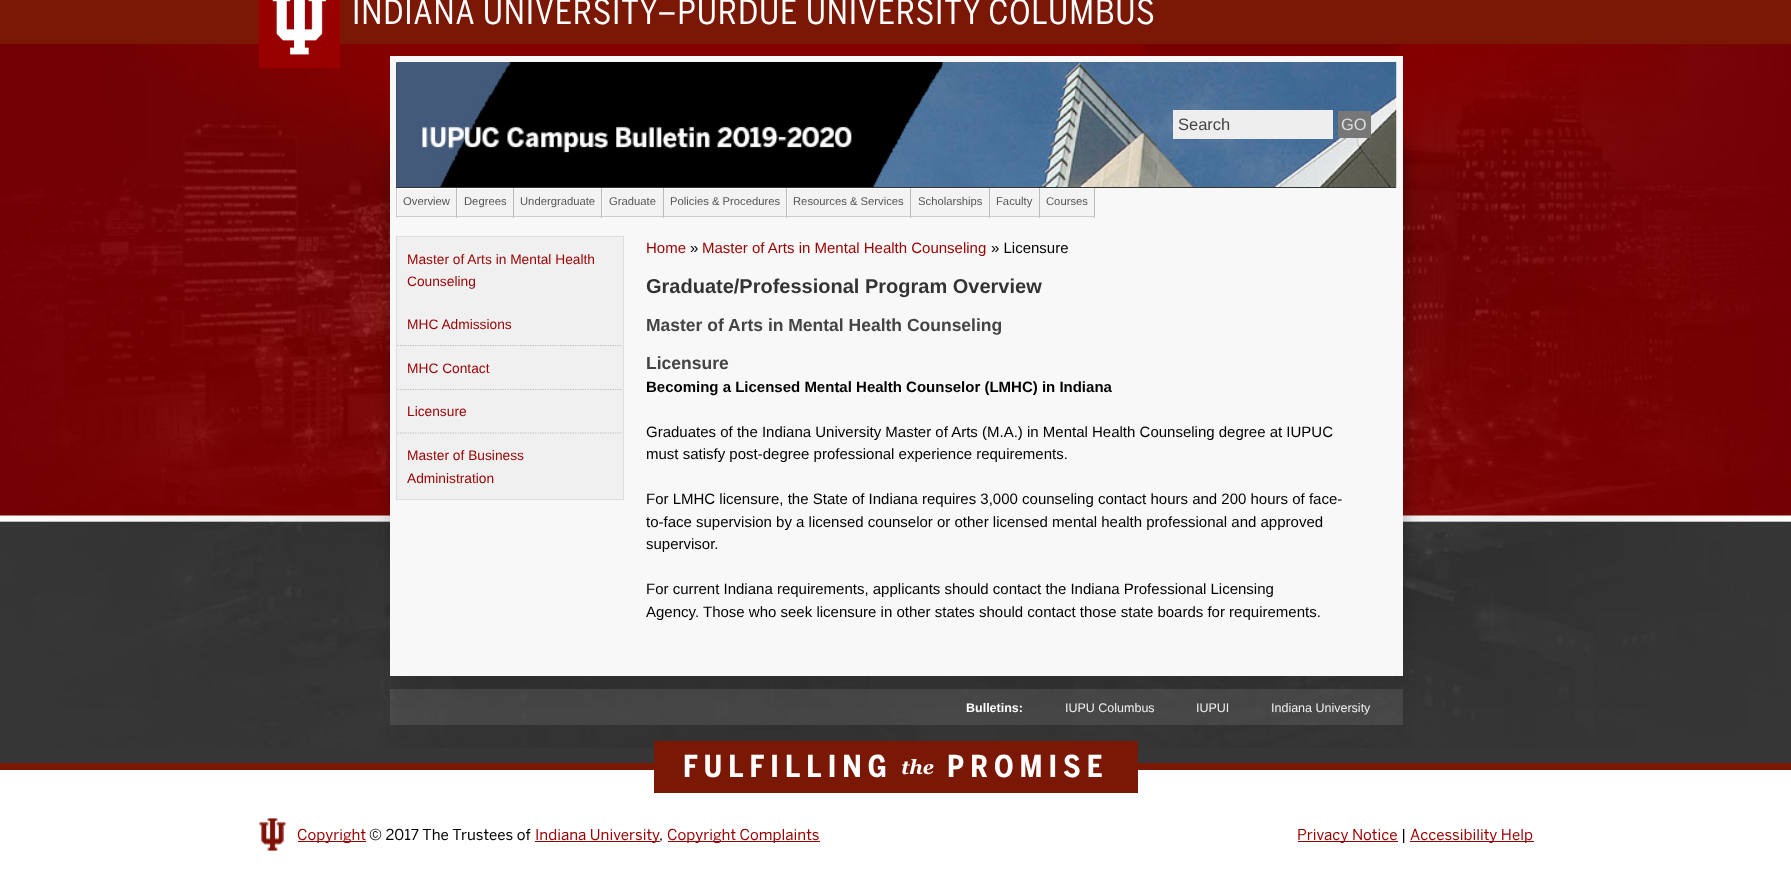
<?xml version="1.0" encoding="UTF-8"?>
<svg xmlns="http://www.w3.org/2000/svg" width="1791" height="872">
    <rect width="100%" height="100%" fill="#363636"/>
    <image x="0" y="44" width="1791" height="704" href="img_01.png"/>
    <rect x="0" y="0" width="1791" height="44" fill="#7A1705"/>
    <image x="258" y="0" width="82" height="69" href="img_02.png"/>
    <text x="352" y="24" font-family="'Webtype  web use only'" font-size="33.75" letter-spacing="0.85" fill="#FFFFFF">INDIANA UNIVERSITY–PURDUE UNIVERSITY COLUMBUS</text>
    <rect x="390" y="56" width="1013" height="620" fill="#F8F8F8"/>
    <rect x="396" y="63" width="1000" height="125" fill="#333333"/>
    <image x="396" y="62" width="1001" height="125" href="img_03.png"/>
    <rect x="1173" y="110" width="160" height="29" fill="#EEEEEE"/>
    <text x="1178" y="130" font-family="Liberation Sans" font-size="16.5" fill="#444444">Search</text>
    <rect x="1338" y="111" width="33" height="27" fill="#777777"/>
    <text x="1341" y="130" font-family="Liberation Sans" font-size="16.5" fill="#DDDDDD">GO</text>
    <rect x="396" y="188" width="699" height="1" fill="#FFFFFF"/>
    <rect x="456" y="188" width="1" height="30" fill="#BBBBBB"/>
    <rect x="396" y="216" width="62" height="1" fill="#CCCCCC"/>
    <rect x="396" y="188" width="1" height="30" fill="#CCCCCC"/>
    <rect x="398" y="189" width="58" height="27" fill="#F3F3F3"/>
    <text x="403" y="205" font-family="Liberation Sans" font-size="11.25" fill="#555555">Overview</text>
    <rect x="513" y="188" width="1" height="30" fill="#BBBBBB"/>
    <rect x="458" y="216" width="56" height="1" fill="#CCCCCC"/>
    <rect x="458" y="189" width="55" height="27" fill="#F3F3F3"/>
    <text x="464" y="205" font-family="Liberation Sans" font-size="11.25" fill="#555555">Degrees</text>
    <rect x="601" y="188" width="1" height="30" fill="#BBBBBB"/>
    <rect x="514" y="216" width="89" height="1" fill="#CCCCCC"/>
    <rect x="514" y="189" width="87" height="27" fill="#F3F3F3"/>
    <text x="520" y="205" font-family="Liberation Sans" font-size="11.25" fill="#555555">Undergraduate</text>
    <rect x="663" y="188" width="1" height="30" fill="#BBBBBB"/>
    <rect x="603" y="216" width="61" height="1" fill="#CCCCCC"/>
    <rect x="603" y="189" width="60" height="27" fill="#F3F3F3"/>
    <text x="609" y="205" font-family="Liberation Sans" font-size="11.25" fill="#555555">Graduate</text>
    <rect x="786" y="188" width="1" height="30" fill="#BBBBBB"/>
    <rect x="664" y="216" width="124" height="1" fill="#CCCCCC"/>
    <rect x="664" y="189" width="122" height="27" fill="#F3F3F3"/>
    <text x="670" y="205" font-family="Liberation Sans" font-size="11.25" fill="#555555">Policies &amp; Procedures</text>
    <rect x="910" y="188" width="1" height="30" fill="#BBBBBB"/>
    <rect x="788" y="216" width="123" height="1" fill="#CCCCCC"/>
    <rect x="788" y="189" width="122" height="27" fill="#F3F3F3"/>
    <text x="793" y="205" font-family="Liberation Sans" font-size="11.25" fill="#555555">Resources &amp; Services</text>
    <rect x="989" y="188" width="1" height="30" fill="#BBBBBB"/>
    <rect x="911" y="216" width="79" height="1" fill="#CCCCCC"/>
    <rect x="911" y="189" width="78" height="27" fill="#F3F3F3"/>
    <text x="918" y="205" font-family="Liberation Sans" font-size="11.25" fill="#555555">Scholarships</text>
    <rect x="1039" y="188" width="1" height="30" fill="#BBBBBB"/>
    <rect x="990" y="216" width="50" height="1" fill="#CCCCCC"/>
    <rect x="990" y="189" width="49" height="27" fill="#F3F3F3"/>
    <text x="996" y="205" font-family="Liberation Sans" font-size="11.25" fill="#555555">Faculty</text>
    <rect x="1094" y="188" width="1" height="30" fill="#BBBBBB"/>
    <rect x="1040" y="216" width="55" height="1" fill="#CCCCCC"/>
    <rect x="1040" y="189" width="54" height="27" fill="#F3F3F3"/>
    <text x="1046" y="205" font-family="Liberation Sans" font-size="11.25" fill="#555555">Courses</text>
    <rect x="396.5" y="236.5" width="227" height="263" fill="#F0F0F0" stroke="#DDDDDD"/>
    <path d="M 397.5 433 H 622.5" fill="none" stroke="#BBBBBB" stroke-width="1.2" stroke-dasharray="1.25 1.25"/>
    <text font-family="Liberation Sans" font-size="13.75" fill="#990000">
        <tspan x="407" y="264">Master of Arts in Mental Health</tspan>
        <tspan x="407" y="286">Counseling</tspan>
    </text>
    <path d="M 397.5 345.5 H 622.5" fill="none" stroke="#BBBBBB" stroke-width="1.2" stroke-dasharray="1.25 1.25"/>
    <text x="407" y="329" font-family="Liberation Sans" font-size="13.75" fill="#990000">MHC Admissions</text>
    <path d="M 397.5 389.5 H 622.5" fill="none" stroke="#BBBBBB" stroke-width="1.2" stroke-dasharray="1.25 1.25"/>
    <text x="407" y="373" font-family="Liberation Sans" font-size="13.75" fill="#990000">MHC Contact</text>
    <text x="407" y="416" font-family="Liberation Sans" font-size="13.75" fill="#990000">Licensure</text>
    <text font-family="Liberation Sans" font-size="13.75" fill="#990000">
        <tspan x="407" y="460">Master of Business</tspan>
        <tspan x="407" y="483">Administration</tspan>
    </text>
    <text x="646" y="253" font-family="Liberation Sans" font-size="15" fill="#990000">Home</text>
    <text x="690" y="253" font-family="Liberation Sans" font-size="15" fill="#000000">»</text>
    <text x="702" y="253" font-family="Liberation Sans" font-size="15" fill="#990000">Master of Arts in Mental Health Counseling</text>
    <text x="991" y="253" font-family="Liberation Sans" font-size="15" fill="#000000">» Licensure</text>
    <text x="646" y="293" font-family="Liberation Sans" font-size="20" font-weight="700" fill="#333333">Graduate/Professional Program Overview</text>
    <text x="646" y="331" font-family="Liberation Sans" font-size="17.5" font-weight="700" fill="#444444">Master of Arts in Mental Health Counseling</text>
    <text x="646" y="369" font-family="Liberation Sans" font-size="17.5" font-weight="700" fill="#444444">Licensure</text>
    <text x="646" y="392" font-family="Liberation Sans" font-size="15" font-weight="700" fill="#000000">Becoming a Licensed Mental Health Counselor (LMHC) in Indiana</text>
    <text font-family="Liberation Sans" font-size="15" fill="#000000">
        <tspan x="646" y="437">Graduates of the Indiana University Master of Arts (M.A.) in Mental Health Counseling degree at IUPUC</tspan>
        <tspan x="646" y="459">must satisfy post-degree professional experience requirements.</tspan>
    </text>
    <text font-family="Liberation Sans" font-size="15" fill="#000000">
        <tspan x="646" y="504">For LMHC licensure, the State of Indiana requires 3,000 counseling contact hours and 200 hours of face-</tspan>
        <tspan x="646" y="527">to-face supervision by a licensed counselor or other licensed mental health professional and approved</tspan>
        <tspan x="646" y="549">supervisor.</tspan>
    </text>
    <text font-family="Liberation Sans" font-size="15" fill="#000000">
        <tspan x="646" y="594">For current Indiana requirements, applicants should contact the Indiana Professional Licensing</tspan>
        <tspan x="646" y="617">Agency. Those who seek licensure in other states should contact those state boards for requirements.</tspan>
    </text>
    <rect x="390" y="689" width="1013" height="36" fill="#FFFFFF" fill-opacity="0.1"/>
    <text x="966" y="712" font-family="Liberation Sans" font-size="12.5" font-weight="700" fill="#FFFFFF">Bulletins:</text>
    <text x="1065" y="712" font-family="Liberation Sans" font-size="12.5" fill="#EEEEEE">IUPU Columbus</text>
    <text x="1196" y="712" font-family="Liberation Sans" font-size="12.5" fill="#EEEEEE">IUPUI</text>
    <text x="1271" y="712" font-family="Liberation Sans" font-size="12.5" fill="#EEEEEE">Indiana University</text>
    <rect x="0" y="770" width="1791" height="102" fill="#FFFFFF"/>
    <rect x="0" y="763" width="1791" height="7" fill="#7A1705"/>
    <rect x="654" y="741" width="484" height="52" fill="#7A1705"/>
    <text x="683" y="777" font-family="'Webtype  web use only'" font-size="30" font-weight="700" letter-spacing="6" fill="#FFFFFF">FULFILLING</text>
    <text x="901" y="774" font-family="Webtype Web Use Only" font-size="20" font-weight="700" font-style="italic" fill="#FFFFFF">the</text>
    <text x="947" y="777" font-family="'Webtype  web use only'" font-size="30" font-weight="700" letter-spacing="6" fill="#FFFFFF">PROMISE</text>
    <image x="258" y="818" width="29" height="33" href="img_04.png"/>
    <rect x="298" y="841" width="68" height="1" fill="#990000"/>
    <text x="297" y="840" font-family="'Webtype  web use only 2'" font-size="15" fill="#990000">Copyright</text>
    <text x="369" y="840" font-family="'Webtype  web use only 2'" font-size="15" fill="#000000">© 2017 The Trustees of</text>
    <rect x="535" y="841" width="125" height="1" fill="#990000"/>
    <text x="535" y="840" font-family="'Webtype  web use only 2'" font-size="15" fill="#990000">Indiana University</text>
    <text x="659" y="840" font-family="'Webtype  web use only 2'" font-size="15" fill="#000000">,</text>
    <rect x="668" y="841" width="152" height="1" fill="#990000"/>
    <text x="667" y="840" font-family="'Webtype  web use only 2'" font-size="15" fill="#990000">Copyright Complaints</text>
    <rect x="1298" y="841" width="100" height="1" fill="#990000"/>
    <text x="1297" y="840" font-family="'Webtype  web use only 2'" font-size="15" fill="#990000">Privacy Notice</text>
    <text x="1401" y="840" font-family="'Webtype  web use only 2'" font-size="15" fill="#000000">|</text>
    <rect x="1410" y="841" width="124" height="1" fill="#990000"/>
    <text x="1410" y="840" font-family="'Webtype  web use only 2'" font-size="15" fill="#990000">Accessibility Help</text>
</svg>
